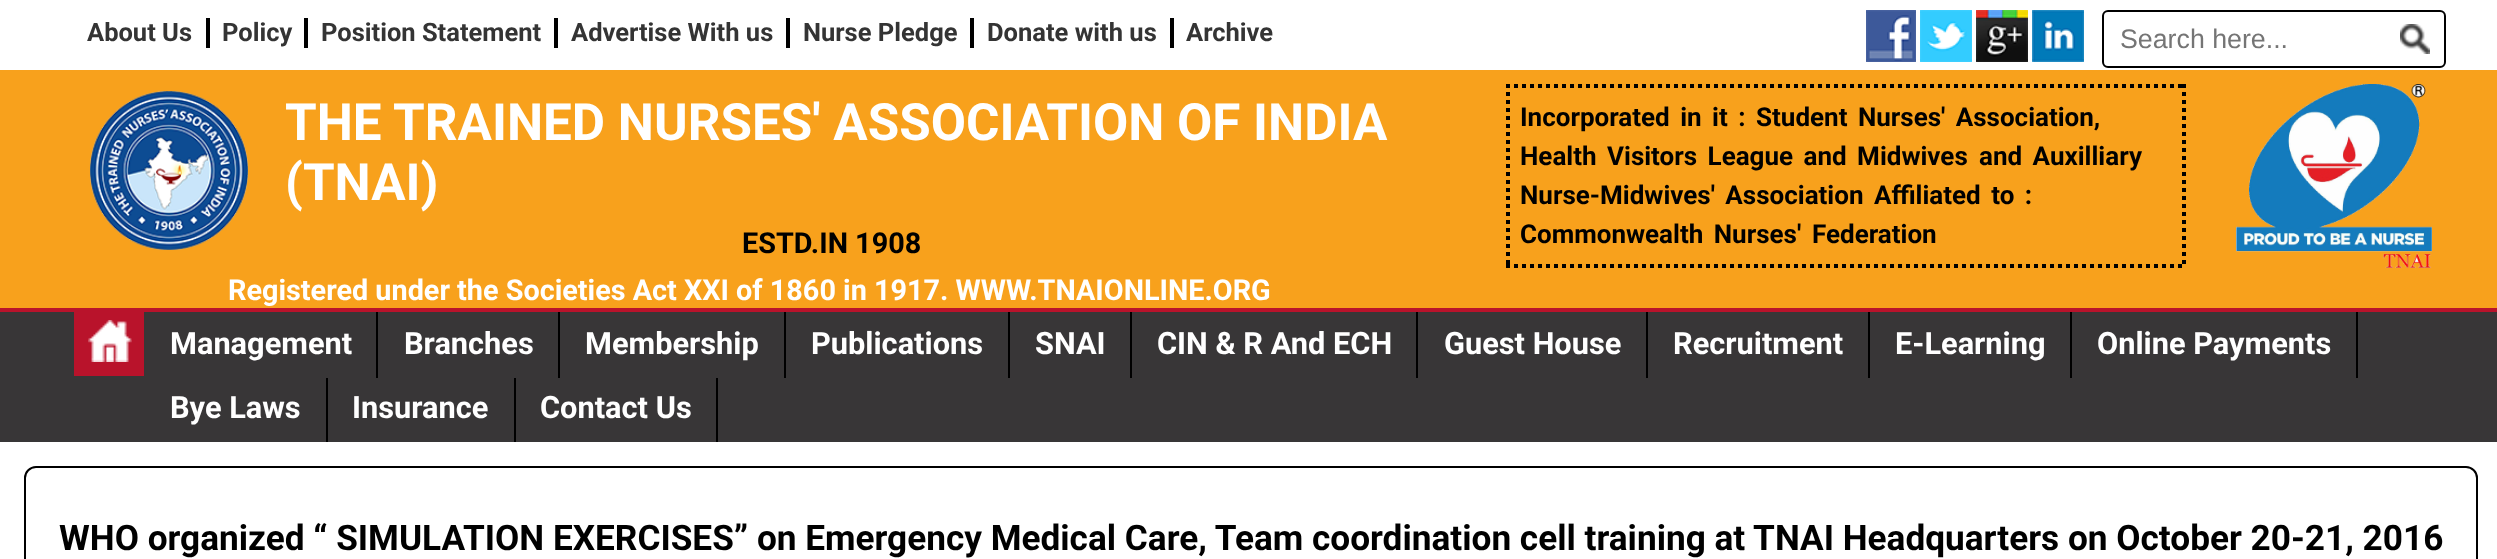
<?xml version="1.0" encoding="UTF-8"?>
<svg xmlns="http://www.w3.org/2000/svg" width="2497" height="559">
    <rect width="100%" height="100%" fill="#FFFFFF"/>
    <rect x="206" y="18" width="4" height="30" fill="#000000"/>
    <text x="87" y="41" font-family="Roboto" font-size="25.5" font-weight="700" fill="#343434">About Us</text>
    <rect x="304" y="18" width="4" height="30" fill="#000000"/>
    <text x="222" y="41" font-family="Roboto" font-size="25.5" font-weight="700" fill="#343434">Policy</text>
    <rect x="554" y="18" width="4" height="30" fill="#000000"/>
    <text x="321" y="41" font-family="Roboto" font-size="25.5" font-weight="700" fill="#343434">Position Statement</text>
    <rect x="786" y="18" width="4" height="30" fill="#000000"/>
    <text x="571" y="41" font-family="Roboto" font-size="25.5" font-weight="700" fill="#343434">Advertise With us</text>
    <rect x="970" y="18" width="4" height="30" fill="#000000"/>
    <text x="803" y="41" font-family="Roboto" font-size="25.5" font-weight="700" fill="#343434">Nurse Pledge</text>
    <rect x="1170" y="18" width="4" height="30" fill="#000000"/>
    <text x="987" y="41" font-family="Roboto" font-size="25.5" font-weight="700" fill="#343434">Donate with us</text>
    <text x="1186" y="41" font-family="Roboto" font-size="25.5" font-weight="700" fill="#343434">Archive</text>
    <image x="1866" y="10" width="50" height="52" href="img_01.png"/>
    <image x="1920" y="10" width="52" height="52" href="img_02.png"/>
    <image x="1976" y="10" width="52" height="52" href="img_03.png"/>
    <image x="2032" y="10" width="52" height="52" href="img_04.png"/>
    <rect x="2103" y="11" width="342" height="56" rx="5" fill="none" stroke="#000000" stroke-width="2"/>
    <text x="2120" y="48" font-family="Liberation Sans" font-size="26.75" fill="#757575">Search here...</text>
    <image x="2400" y="24" width="30" height="30" href="img_05.png"/>
    <rect x="0" y="70" width="2497" height="238" fill="#F8A11C"/>
    <image x="90" y="91" width="158" height="159" href="img_06.png"/>
    <text font-family="Roboto" font-size="51.2" font-weight="700" fill="#FFFFFF">
        <tspan x="285" y="140">THE TRAINED NURSES' ASSOCIATION OF INDIA</tspan>
        <tspan x="285" y="200">(TNAI)</tspan>
    </text>
    <text x="742" y="253" font-family="Roboto" font-size="28.8" font-weight="700" fill="#000000">ESTD.IN 1908</text>
    <text x="228" y="300" font-family="Roboto" font-size="28.8" font-weight="700" fill="#FFFFFF">Registered under the Societies Act XXI of 1860 in 1917. WWW.TNAIONLINE.ORG</text>
    <path d="M 1506 86 H 2186" fill="none" stroke="#000000" stroke-width="4" stroke-dasharray="4 4"/>
    <path d="M 2184 84 V 268" fill="none" stroke="#000000" stroke-width="4" stroke-dasharray="4 4"/>
    <path d="M 1506 266 H 2186" fill="none" stroke="#000000" stroke-width="4" stroke-dasharray="4 4"/>
    <path d="M 1508 84 V 268" fill="none" stroke="#000000" stroke-width="4" stroke-dasharray="4 4"/>
    <text font-family="Roboto" font-size="26" font-weight="700" fill="#000000">
        <tspan x="1520" y="126" word-spacing="4">Incorporated in it : Student Nurses' Association,</tspan>
        <tspan x="1520" y="165" word-spacing="4">Health Visitors League and Midwives</tspan>
    </text>
    <text x="1979" y="165" word-spacing="4" font-family="Roboto" font-size="26" font-weight="700" fill="#000000">and Auxilliary</text>
    <text font-family="Roboto" font-size="26" font-weight="700" fill="#000000">
        <tspan x="1520" y="204" word-spacing="4">Nurse-Midwives' Association Affiliated to :</tspan>
        <tspan x="1520" y="243" word-spacing="4">Commonwealth Nurses'</tspan>
    </text>
    <text x="1812" y="243" font-family="Roboto" font-size="26" font-weight="700" fill="#000000">Federation</text>
    <image x="2236" y="84" width="196" height="184" href="img_07.png"/>
    <rect x="0" y="308" width="2497" height="4" fill="#B9132B"/>
    <rect x="0" y="312" width="2497" height="130" fill="#383637"/>
    <rect x="74" y="312" width="70" height="64" fill="#B9132B"/>
    <image x="88" y="320" width="44" height="42" href="img_08.png"/>
    <rect x="376" y="312" width="2" height="66" fill="#000000"/>
    <text x="170" y="354" font-family="Roboto" font-size="30.75" font-weight="700" fill="#FFFFFF">Management</text>
    <rect x="558" y="312" width="2" height="66" fill="#000000"/>
    <text x="404" y="354" font-family="Roboto" font-size="30.75" font-weight="700" fill="#FFFFFF">Branches</text>
    <rect x="784" y="312" width="2" height="66" fill="#000000"/>
    <text x="585" y="354" font-family="Roboto" font-size="30.75" font-weight="700" fill="#FFFFFF">Membership</text>
    <rect x="1008" y="312" width="2" height="66" fill="#000000"/>
    <text x="811" y="354" font-family="Roboto" font-size="30.75" font-weight="700" fill="#FFFFFF">Publications</text>
    <rect x="1130" y="312" width="2" height="66" fill="#000000"/>
    <text x="1035" y="354" font-family="Roboto" font-size="30.75" font-weight="700" fill="#FFFFFF">SNAI</text>
    <rect x="1416" y="312" width="2" height="66" fill="#000000"/>
    <text x="1157" y="354" font-family="Roboto" font-size="30.75" font-weight="700" fill="#FFFFFF">CIN &amp; R And ECH</text>
    <rect x="1646" y="312" width="2" height="66" fill="#000000"/>
    <text x="1444" y="354" font-family="Roboto" font-size="30.75" font-weight="700" fill="#FFFFFF">Guest House</text>
    <rect x="1868" y="312" width="2" height="66" fill="#000000"/>
    <text x="1673" y="354" font-family="Roboto" font-size="30.75" font-weight="700" fill="#FFFFFF">Recruitment</text>
    <rect x="2070" y="312" width="2" height="66" fill="#000000"/>
    <text x="1895" y="354" font-family="Roboto" font-size="30.75" font-weight="700" fill="#FFFFFF">E-Learning</text>
    <rect x="2356" y="312" width="2" height="66" fill="#000000"/>
    <text x="2097" y="354" font-family="Roboto" font-size="30.75" font-weight="700" fill="#FFFFFF">Online Payments</text>
    <rect x="326" y="378" width="2" height="64" fill="#000000"/>
    <text x="170" y="418" font-family="Roboto" font-size="30.75" font-weight="700" fill="#FFFFFF">Bye Laws</text>
    <rect x="514" y="378" width="2" height="64" fill="#000000"/>
    <text x="352" y="418" font-family="Roboto" font-size="30.75" font-weight="700" fill="#FFFFFF">Insurance</text>
    <rect x="716" y="378" width="2" height="64" fill="#000000"/>
    <text x="540" y="418" font-family="Roboto" font-size="30.75" font-weight="700" fill="#FFFFFF">Contact Us</text>
    <rect x="25" y="467" width="2452" height="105" rx="11" fill="none" stroke="#000000" stroke-width="2"/>
    <text x="59" y="550" font-family="Roboto" font-size="35.2" font-weight="700" fill="#000000">WHO organized “ SIMULATION EXERCISES” on Emergency Medical Care, Team coordination cell training at TNAI Headquarters on October 20-21, 2016</text>
</svg>
